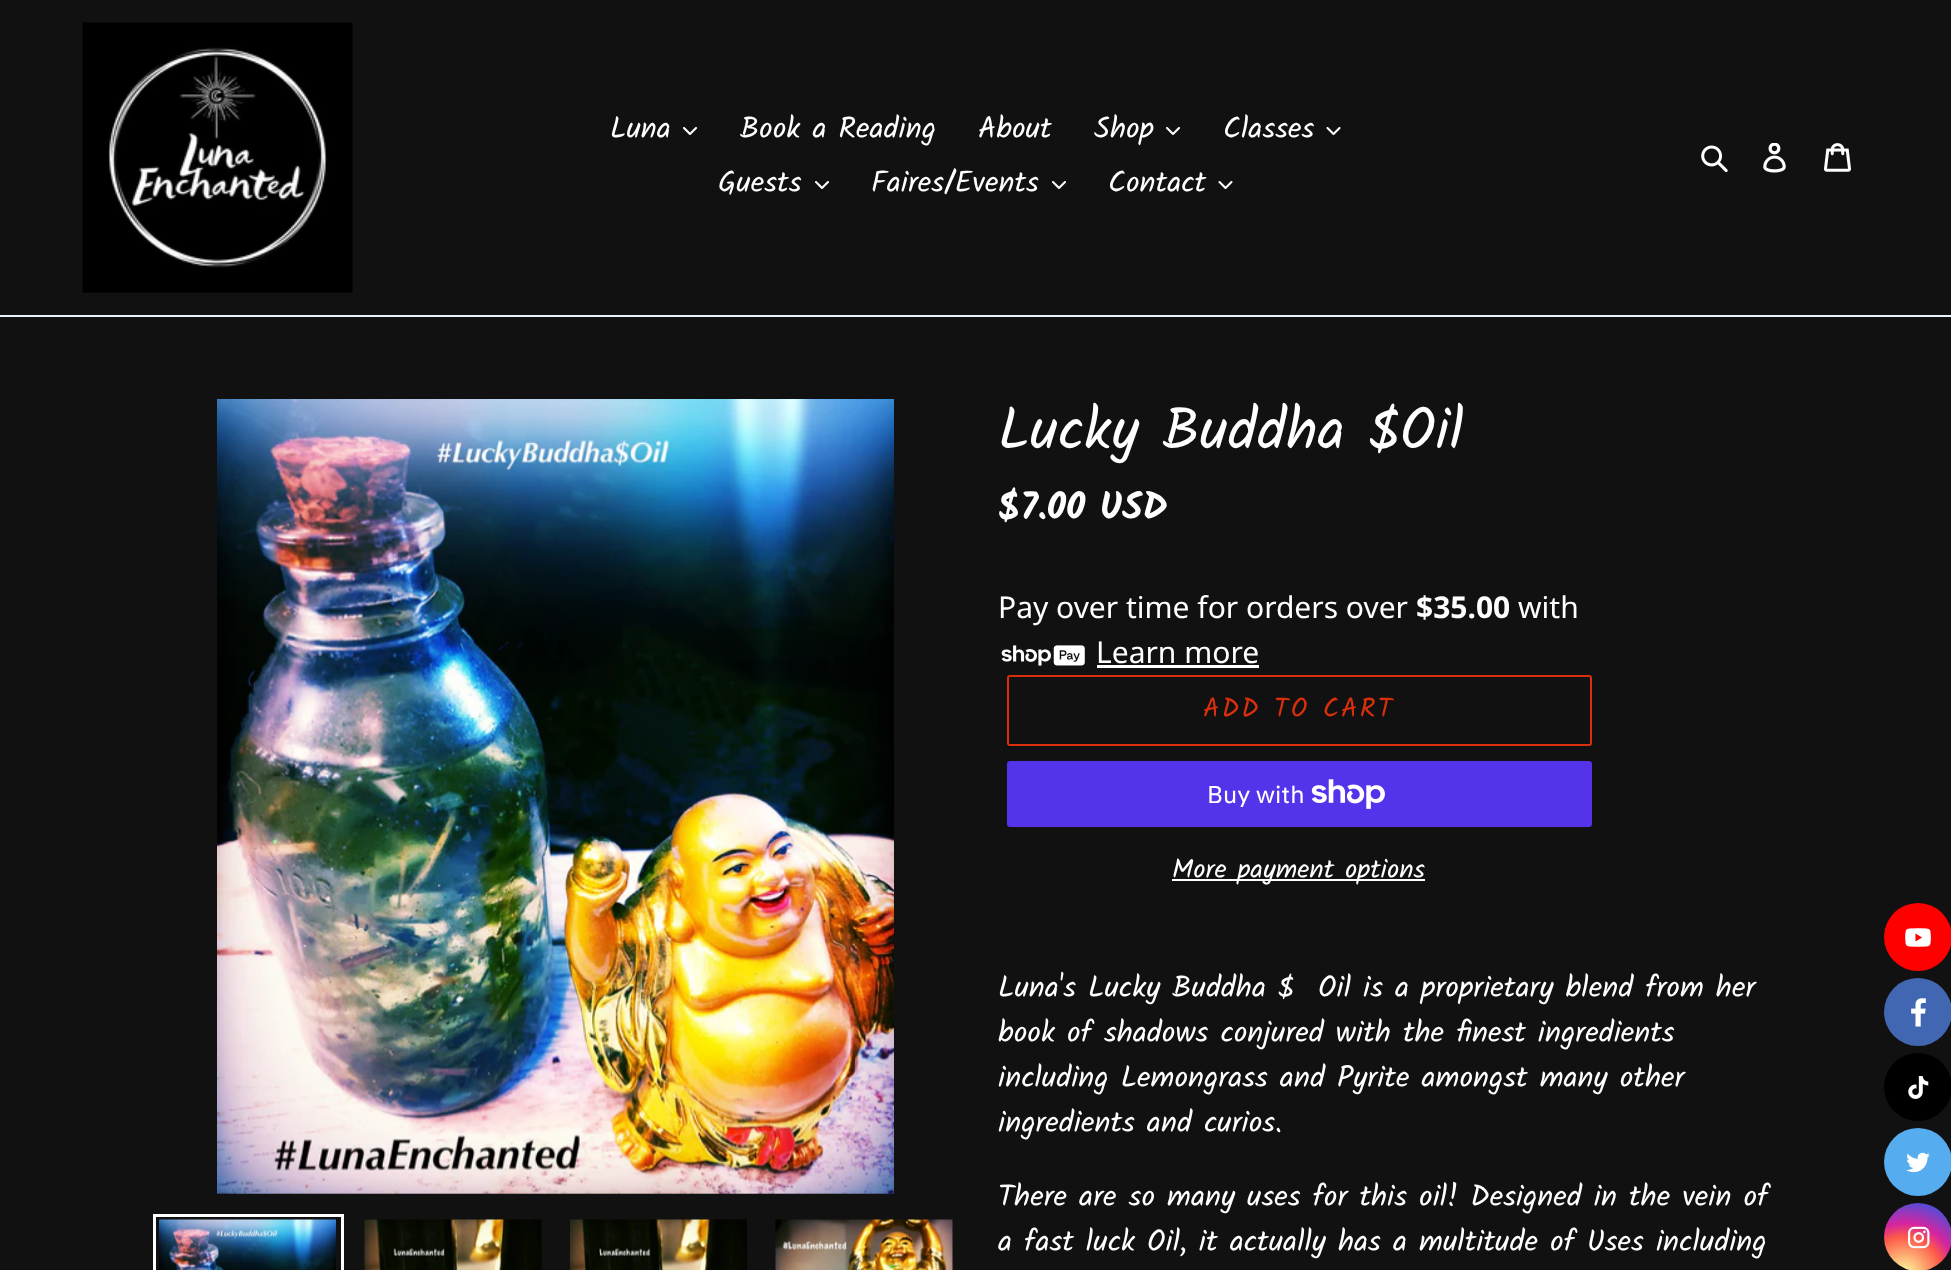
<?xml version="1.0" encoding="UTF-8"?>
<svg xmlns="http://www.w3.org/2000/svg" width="1951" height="1270">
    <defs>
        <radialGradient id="g1" gradientUnits="userSpaceOnUse" cx="1904" cy="1275" r="86"><stop offset="0" stop-color="#FDF497"/><stop offset="0.05" stop-color="#FDF497"/><stop offset="0.45" stop-color="#FD5949"/><stop offset="0.6" stop-color="#D6249F"/><stop offset="0.95" stop-color="#285AEB"/></radialGradient>
    </defs>
    <rect width="100%" height="100%" fill="#121111"/>
    <rect x="0" y="315" width="1951" height="2" fill="#E8F3F6"/>
    <image x="82" y="22" width="271" height="271" href="img_01.png"/>
    <text x="610" y="138" font-family="Kalam" font-size="30" fill="#FFFFFF">Luna</text>
    <image x="683" y="127" width="14" height="8" href="img_02.png"/>
    <text x="740" y="138" font-family="Kalam" font-size="30" fill="#FFFFFF">Book a Reading</text>
    <text x="978" y="138" font-family="Kalam" font-size="30" fill="#FFFFFF">About</text>
    <text x="1094" y="138" font-family="Kalam" font-size="30" fill="#FFFFFF">Shop</text>
    <image x="1166" y="127" width="14" height="8" href="img_02.png"/>
    <text x="1223" y="138" font-family="Kalam" font-size="30" fill="#FFFFFF">Classes</text>
    <image x="1326" y="127" width="15" height="8" href="img_03.png"/>
    <text x="718" y="192" font-family="Kalam" font-size="30" fill="#FFFFFF">Guests</text>
    <image x="815" y="181" width="14" height="8" href="img_02.png"/>
    <text x="871" y="192" font-family="Kalam" font-size="30" fill="#FFFFFF">Faires/Events</text>
    <image x="1052" y="181" width="14" height="8" href="img_02.png"/>
    <text x="1108" y="192" font-family="Kalam" font-size="30" fill="#FFFFFF">Contact</text>
    <image x="1218" y="181" width="15" height="8" href="img_03.png"/>
    <image x="1701" y="145" width="27" height="28" href="img_04.png"/>
    <image x="1763" y="143" width="23" height="30" href="img_05.png"/>
    <image x="1824" y="143" width="27" height="29" href="img_06.png"/>
    <image x="217" y="399" width="677" height="795" href="img_07.png"/>
    <rect x="154.5" y="1215.5" width="188" height="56" fill="none" stroke="#FFFFFF" stroke-width="3"/>
    <image x="159" y="1219" width="177" height="51" href="img_08.png"/>
    <image x="364" y="1219" width="178" height="51" href="img_09.png"/>
    <image x="570" y="1219" width="177" height="51" href="img_10.png"/>
    <image x="775" y="1219" width="178" height="51" href="img_11.png"/>
    <text x="998" y="449" font-family="Kalam" font-size="58.5" fill="#FFFFFF">Lucky Buddha $Oil</text>
    <text x="998" y="519" font-family="Kalam" font-size="37.5" font-weight="700" fill="#FFFFFF">$7.00 USD</text>
    <text x="998" y="618" font-family="Noto Sans" font-size="30" fill="#FFFFFF">Pay over time for orders over</text>
    <text x="1416" y="618" font-family="Noto Sans" font-size="30" font-weight="700" fill="#FFFFFF">$35.00</text>
    <text x="1518" y="618" font-family="Noto Sans" font-size="30" fill="#FFFFFF">with</text>
    <image x="1001" y="645" width="84" height="21" href="img_12.png"/>
    <text x="1096" y="663" font-family="Noto Sans" font-size="30" fill="#FFFFFF">Learn more</text>
    <rect x="1097" y="665" width="162" height="3" fill="#FFFFFF"/>
    <rect x="1008" y="676" width="583" height="69" rx="2" fill="none" stroke="#DA2F0C" stroke-width="2"/>
    <text x="1203" y="717" font-family="Kalam" font-size="27" letter-spacing="2.25" fill="#DA2F0C">ADD TO CART</text>
    <rect x="1007" y="761" width="585" height="66" rx="3" fill="#5433EB"/>
    <text x="1207" y="803" font-family="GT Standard" font-size="24" fill="#FFFFFF">Buy with</text>
    <image x="1311" y="779" width="74" height="30" href="img_13.png"/>
    <rect x="1172" y="879" width="253" height="2" fill="#FFFFFF"/>
    <text x="1172" y="878" font-family="Kalam" font-size="27" fill="#FFFFFF">More payment options</text>
    <text font-family="Kalam" font-size="30" fill="#FFFFFF" xml:space="preserve"><tspan x="998" y="997">Luna's Lucky Buddha $  Oil is a proprietary blend from her</tspan><tspan x="998" y="1042">book of shadows conjured with the finest ingredients</tspan><tspan x="998" y="1087">including Lemongrass and Pyrite amongst many other</tspan><tspan x="998" y="1132">ingredients and curios.</tspan></text>
    <text font-family="Kalam" font-size="30" fill="#FFFFFF">
        <tspan x="998" y="1206">There are so many uses for this oil! Designed in the vein of</tspan>
        <tspan x="998" y="1251">a fast luck Oil, it actually has a multitude of Uses including</tspan>
    </text>
    <circle cx="1918" cy="937" r="34" fill="#FF0000"/>
    <image x="1905" y="928" width="26" height="19" href="img_14.png"/>
    <circle cx="1918" cy="1012" r="34" fill="#4267B2"/>
    <image x="1911" y="998" width="15" height="29" href="img_15.png"/>
    <circle cx="1918" cy="1087" r="34" fill="#000000"/>
    <image x="1908" y="1076" width="21" height="23" href="img_16.png"/>
    <circle cx="1918" cy="1162" r="34" fill="#55ACEE"/>
    <image x="1906" y="1152" width="24" height="21" href="img_17.png"/>
    <circle cx="1918" cy="1237" r="34" fill="url(#g1)"/>
    <image x="1908" y="1226" width="22" height="23" href="img_18.png"/>
</svg>
